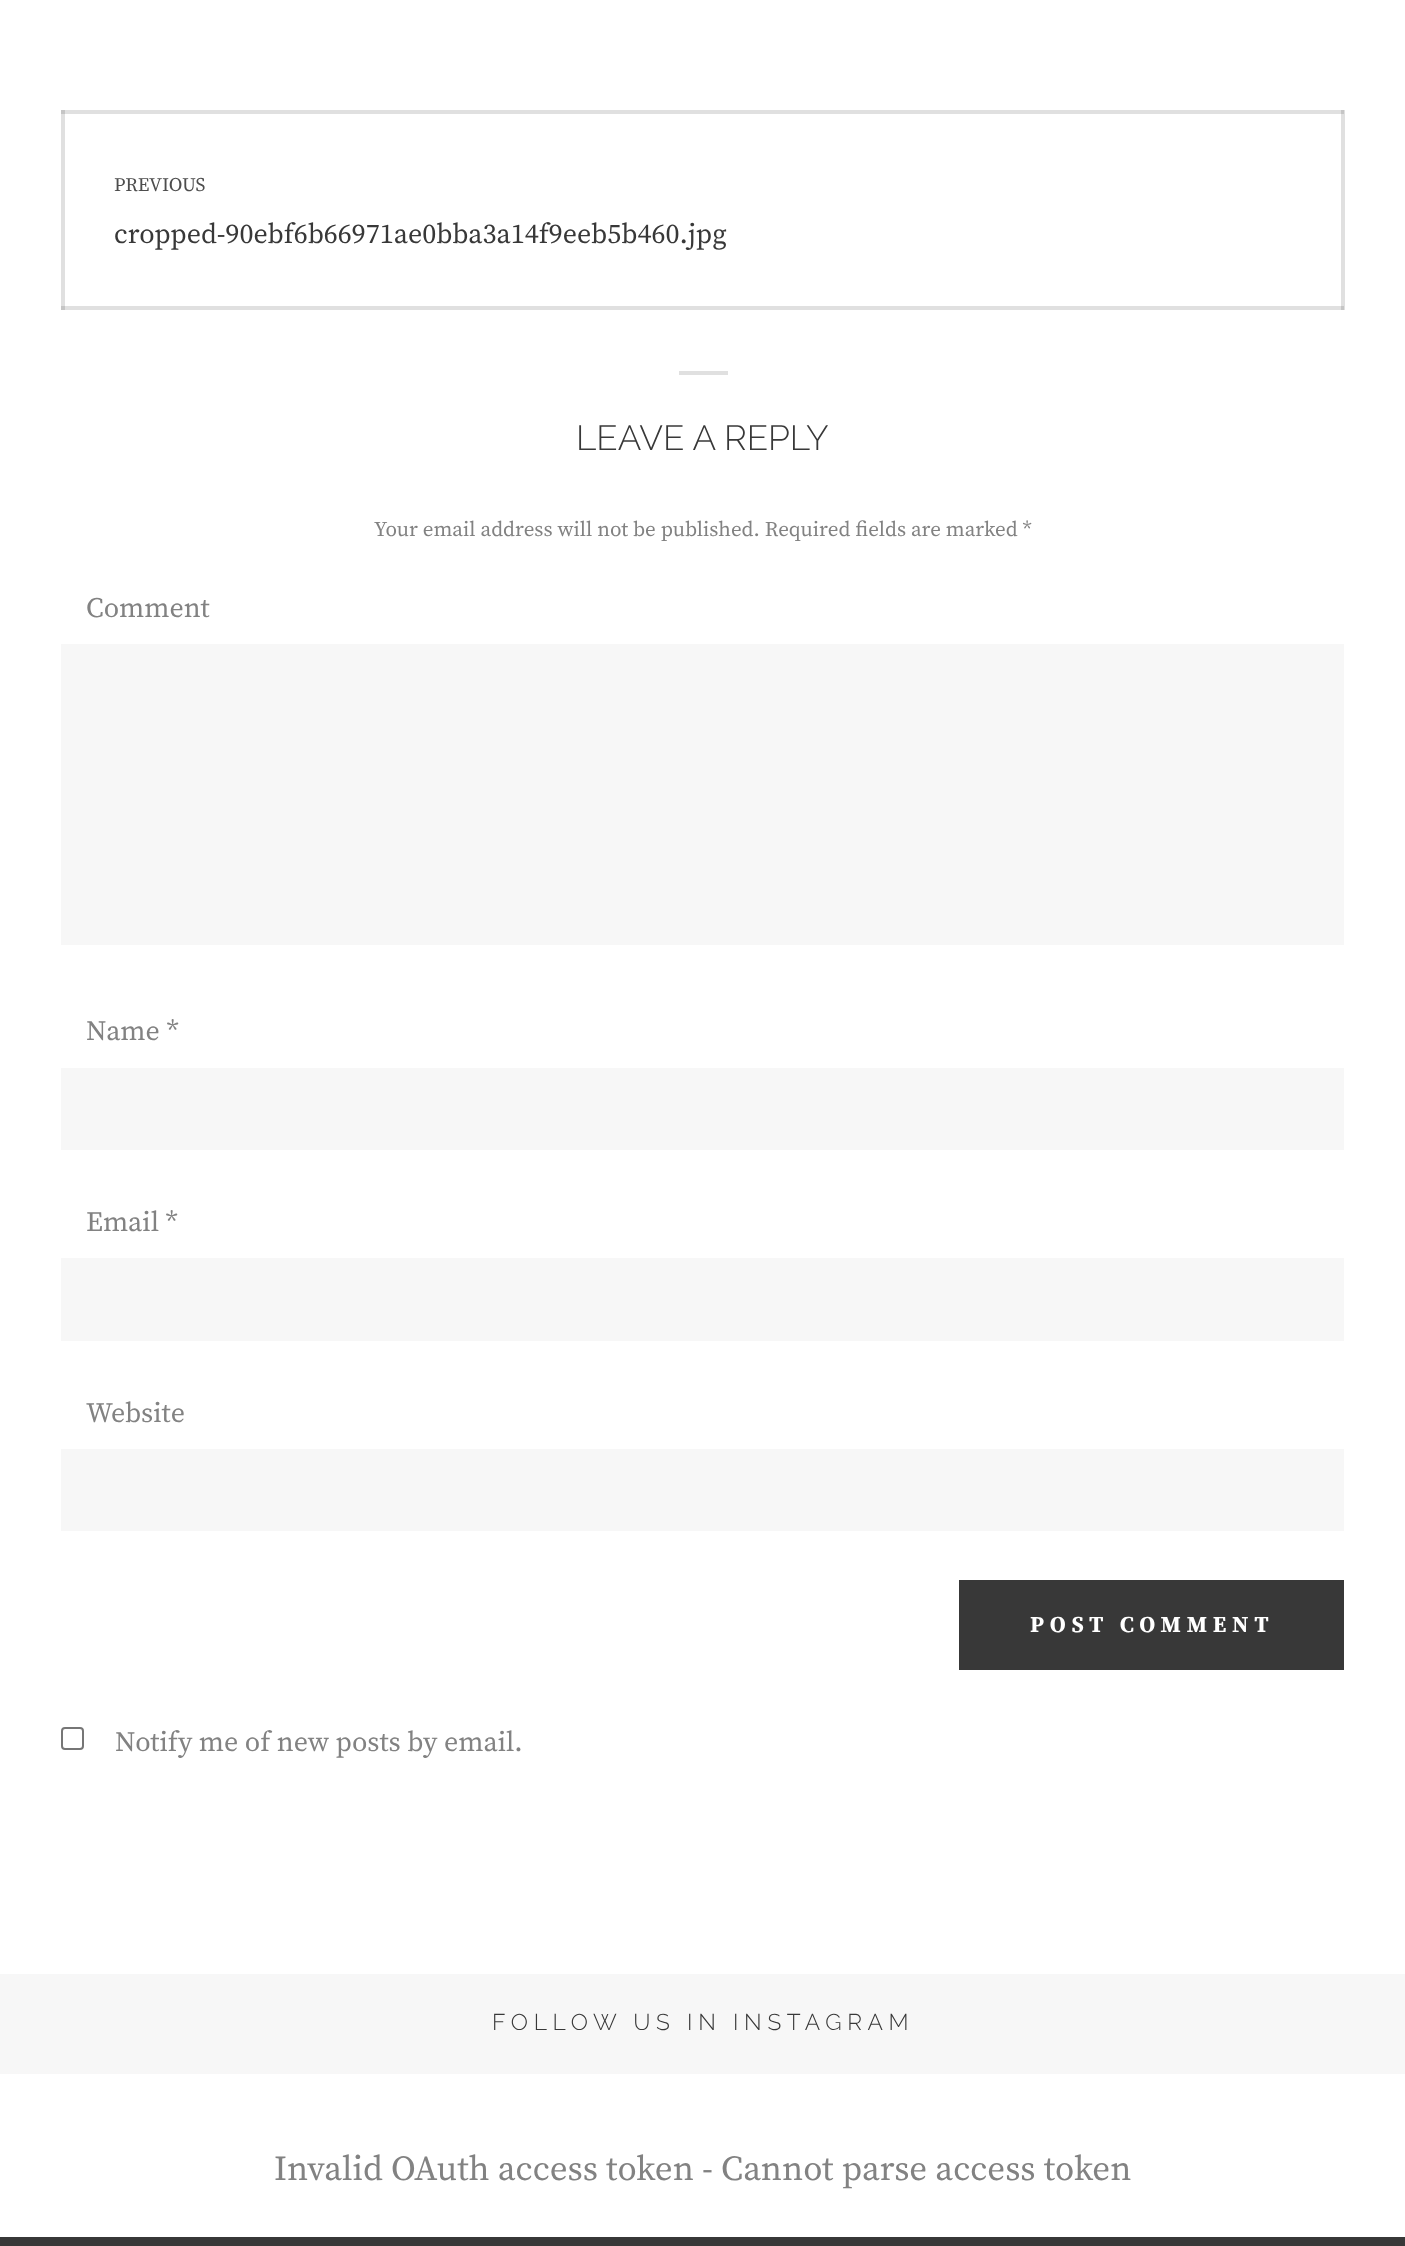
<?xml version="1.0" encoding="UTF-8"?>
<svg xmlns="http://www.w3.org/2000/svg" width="1405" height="2246">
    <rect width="100%" height="100%" fill="#FFFFFF"/>
    <rect x="61" y="110" width="4" height="200" fill="#E0E0E0"/>
    <rect x="61" y="306" width="1283" height="4" fill="#E0E0E0"/>
    <rect x="61" y="306" width="4" height="4" fill="#C5C5C5"/>
    <rect x="1341" y="110" width="4" height="200" fill="#E0E0E0"/>
    <rect x="1341" y="306" width="3" height="4" fill="#C5C5C5"/>
    <rect x="61" y="110" width="1283" height="4" fill="#E0E0E0"/>
    <rect x="61" y="110" width="4" height="4" fill="#C5C5C5"/>
    <rect x="1341" y="110" width="3" height="4" fill="#C5C5C5"/>
    <text x="114" y="191" font-family="Source Serif Pro" font-size="19.25" fill="#4D4D4D">PREVIOUS</text>
    <text x="114" y="243" font-family="Source Serif Pro" font-size="28" fill="#383838">cropped-90ebf6b66971ae0bba3a14f9eeb5b460.jpg</text>
    <rect x="679" y="371" width="49" height="4" fill="#E0E0E0"/>
    <text x="576" y="450" font-family="Raleway" font-size="35" font-weight="300" fill="#383838">LEAVE A REPLY</text>
    <text x="374" y="536" font-family="Source Serif Pro" font-size="21" fill="#828282">Your email address will not be published. Required fields are marked *</text>
    <text x="86" y="617" font-family="Source Serif Pro" font-size="28" fill="#828282">Comment</text>
    <rect x="61" y="644" width="1283" height="301" fill="#F7F7F7"/>
    <text x="86" y="1040" font-family="Source Serif Pro" font-size="28" fill="#828282">Name *</text>
    <rect x="61" y="1068" width="1283" height="82" fill="#F7F7F7"/>
    <text x="86" y="1231" font-family="Source Serif Pro" font-size="28" fill="#828282">Email *</text>
    <rect x="61" y="1258" width="1283" height="83" fill="#F7F7F7"/>
    <text x="86" y="1422" font-family="Source Serif Pro" font-size="28" fill="#828282">Website</text>
    <rect x="61" y="1449" width="1283" height="82" fill="#F7F7F7"/>
    <rect x="959" y="1580" width="385" height="90" fill="#383838"/>
    <text x="1030" y="1632" font-family="Source Serif Pro" font-size="22.75" font-weight="700" letter-spacing="5.7" fill="#FFFFFF">POST COMMENT</text>
    <rect x="62" y="1728" width="21" height="21" rx="3" fill="none" stroke="#767676" stroke-width="2"/>
    <text x="115" y="1751" font-family="Source Serif Pro" font-size="28" fill="#828282">Notify me of new posts by email.</text>
    <rect x="0" y="1974" width="1405" height="100" fill="#F7F7F7"/>
    <text x="492" y="2030" font-family="Raleway" font-size="22.75" font-weight="300" letter-spacing="5.7" fill="#383838">FOLLOW US IN INSTAGRAM</text>
    <text x="274" y="2180" font-family="Source Serif Pro" font-size="35" fill="#828282">Invalid OAuth access token - Cannot parse access token</text>
    <rect x="0" y="2237" width="1405" height="9" fill="#383838"/>
</svg>
